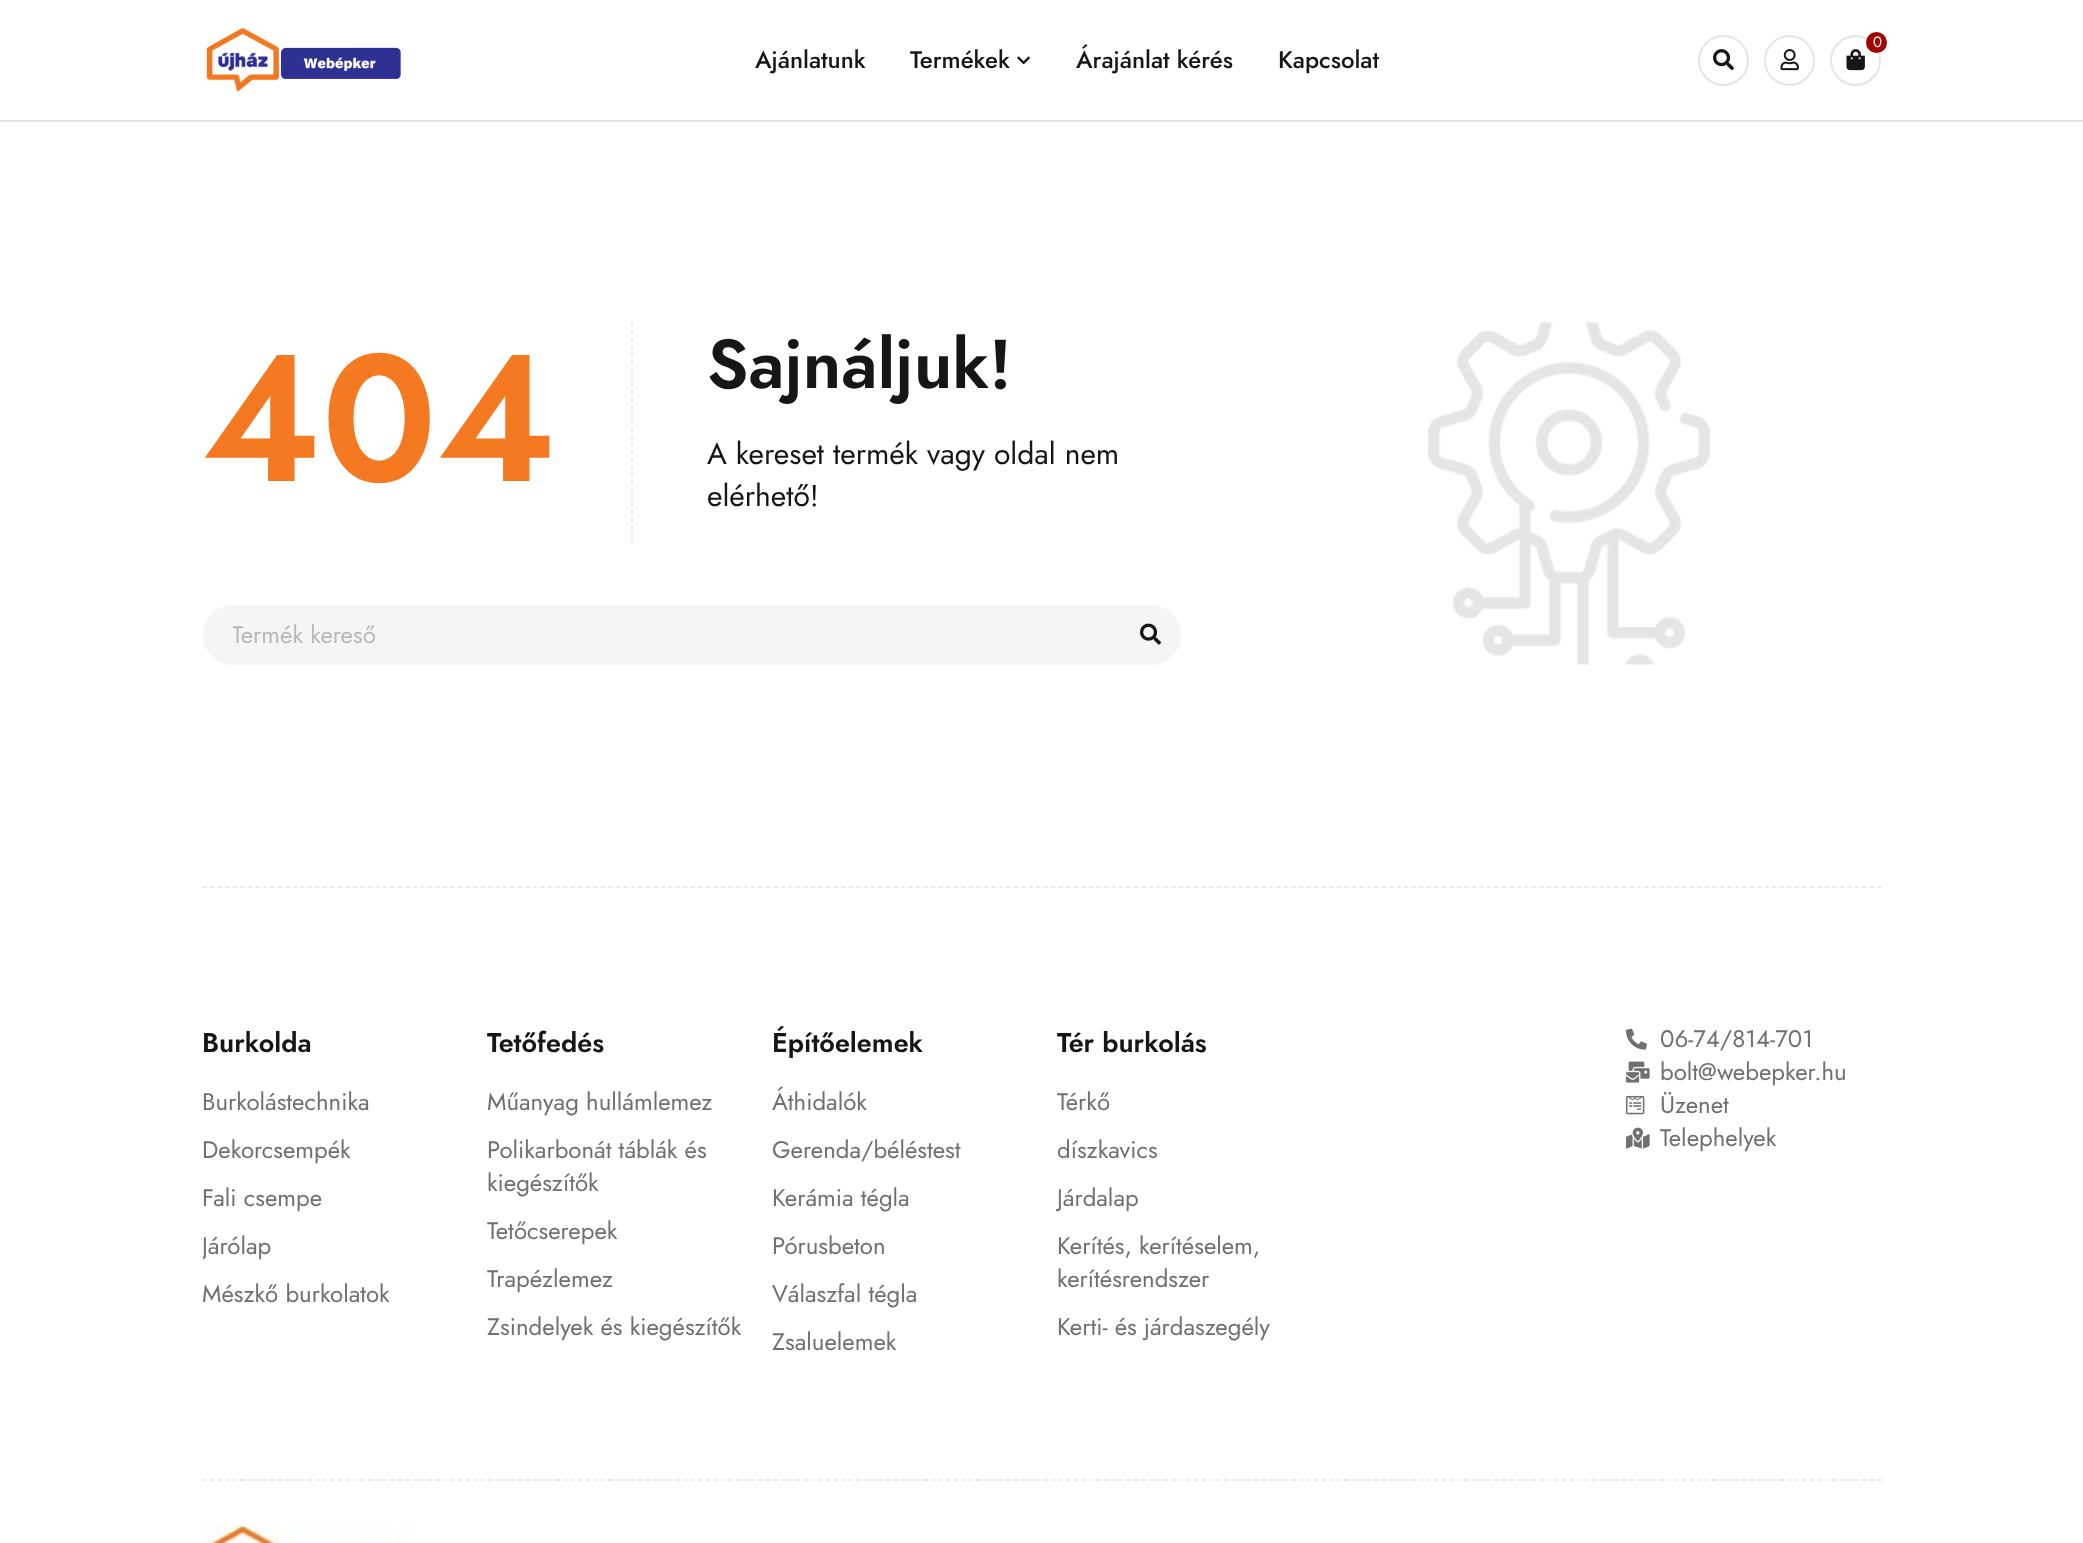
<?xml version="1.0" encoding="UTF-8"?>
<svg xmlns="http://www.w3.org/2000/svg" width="2083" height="1543">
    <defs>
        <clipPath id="clip1"><rect x="233" y="617" width="873" height="34"/></clipPath>
        <clipPath id="clip2"><rect x="203" y="1023" width="187" height="288"/></clipPath>
        <clipPath id="clip3"><rect x="1056" y="1023" width="255" height="321"/></clipPath>
    </defs>
    <rect width="100%" height="100%" fill="#FFFFFF"/>
    <image x="203" y="27" width="200" height="66" href="img_01.png"/>
    <circle cx="1723.5" cy="60.5" r="24.5" fill="none" stroke="#E5E5E5" stroke-width="2"/>
    <image x="1713" y="49" width="21" height="22" href="img_02.png"/>
    <circle cx="1789.5" cy="60.5" r="24.5" fill="none" stroke="#E5E5E5" stroke-width="2"/>
    <image x="1780" y="49" width="19" height="22" href="img_03.png"/>
    <circle cx="1855.5" cy="60.5" r="24.5" fill="none" stroke="#E5E5E5" stroke-width="2"/>
    <circle cx="1876.5" cy="42.5" r="10.5" fill="#A20401"/>
    <text x="1873" y="47" font-family="Jost" font-size="15" fill="#FFFFFF">0</text>
    <image x="1846" y="49" width="19" height="22" href="img_04.png"/>
    <text x="755" y="68" font-family="Jost" font-size="24" font-weight="500" fill="#161616">Ajánlatunk</text>
    <text x="910" y="68" font-family="Jost" font-size="24" font-weight="500" fill="#161616">Termékek</text>
    <image x="1017" y="56" width="13" height="9" href="img_05.png"/>
    <text x="1076" y="68" font-family="Jost" font-size="24" font-weight="500" fill="#161616">Árajánlat kérés</text>
    <text x="1278" y="68" font-family="Jost" font-size="24" font-weight="500" fill="#161616">Kapcsolat</text>
    <rect x="0" y="120" width="2083" height="2" fill="#E5E5E5"/>
    <text x="202" y="481" font-family="Jost" font-size="180" font-weight="600" fill="#F57921">404</text>
    <path d="M 632 322.5 V 544.5" fill="none" stroke="#E5E5E5" stroke-width="1.5" stroke-dasharray="4.5 3"/>
    <text x="707" y="388" font-family="Jost" font-size="69" font-weight="600" fill="#161616">Sajnáljuk!</text>
    <text font-family="Jost" font-size="30" fill="#161616">
        <tspan x="707" y="464">A kereset termék vagy oldal nem</tspan>
        <tspan x="707" y="506">elérhető!</tspan>
    </text>
    <rect x="203" y="605" width="978" height="60" rx="30" fill="#F6F5F6"/>
    <g clip-path="url(#clip1)">
        <text x="232" y="643" font-family="Jost" font-size="24" fill="#B8B8B8">Termék kereső</text>
    </g>
    <image x="1140" y="623" width="21" height="22" href="img_06.png"/>
    <image x="1428" y="322" width="282" height="343" href="img_07.png"/>
    <path d="M 202.5 887 H 1882.5" fill="none" stroke="#E5E5E5" stroke-width="1.5" stroke-dasharray="4.5 3.01"/>
    <text x="202" y="1052" font-family="Jost" font-size="27" font-weight="600" fill="#161616">Burkolda</text>
    <text x="202" y="1110" font-family="Jost" font-size="24" fill="#707070">Burkolástechnika</text>
    <text x="202" y="1158" font-family="Jost" font-size="24" fill="#707070">Dekorcsempék</text>
    <text x="202" y="1206" font-family="Jost" font-size="24" fill="#707070">Fali csempe</text>
    <g clip-path="url(#clip2)">
        <text x="202" y="1254" font-family="Jost" font-size="24" fill="#707070">Járólap</text>
    </g>
    <text x="202" y="1302" font-family="Jost" font-size="24" fill="#707070">Mészkő burkolatok</text>
    <text x="487" y="1052" font-family="Jost" font-size="27" font-weight="600" fill="#161616">Tetőfedés</text>
    <text x="487" y="1110" font-family="Jost" font-size="24" fill="#707070">Műanyag hullámlemez</text>
    <text font-family="Jost" font-size="24" fill="#707070">
        <tspan x="487" y="1158">Polikarbonát táblák és</tspan>
        <tspan x="487" y="1191">kiegészítők</tspan>
    </text>
    <text x="487" y="1239" font-family="Jost" font-size="24" fill="#707070">Tetőcserepek</text>
    <text x="487" y="1287" font-family="Jost" font-size="24" fill="#707070">Trapézlemez</text>
    <text x="487" y="1335" font-family="Jost" font-size="24" fill="#707070">Zsindelyek és kiegészítők</text>
    <text x="772" y="1052" font-family="Jost" font-size="27" font-weight="600" fill="#161616">Építőelemek</text>
    <text x="772" y="1110" font-family="Jost" font-size="24" fill="#707070">Áthidalók</text>
    <text x="772" y="1158" font-family="Jost" font-size="24" fill="#707070">Gerenda/béléstest</text>
    <text x="772" y="1206" font-family="Jost" font-size="24" fill="#707070">Kerámia tégla</text>
    <text x="772" y="1254" font-family="Jost" font-size="24" fill="#707070">Pórusbeton</text>
    <text x="772" y="1302" font-family="Jost" font-size="24" fill="#707070">Válaszfal tégla</text>
    <text x="772" y="1350" font-family="Jost" font-size="24" fill="#707070">Zsaluelemek</text>
    <text x="1057" y="1052" font-family="Jost" font-size="27" font-weight="600" fill="#161616">Tér burkolás</text>
    <text x="1057" y="1110" font-family="Jost" font-size="24" fill="#707070">Térkő</text>
    <text x="1057" y="1158" font-family="Jost" font-size="24" fill="#707070">díszkavics</text>
    <g clip-path="url(#clip3)">
        <text x="1057" y="1206" font-family="Jost" font-size="24" fill="#707070">Járdalap</text>
    </g>
    <text font-family="Jost" font-size="24" fill="#707070">
        <tspan x="1057" y="1254">Kerítés, kerítéselem,</tspan>
        <tspan x="1057" y="1287">kerítésrendszer</tspan>
    </text>
    <text x="1057" y="1335" font-family="Jost" font-size="24" fill="#707070">Kerti- és járdaszegély</text>
    <image x="1626" y="1028" width="21" height="22" href="img_08.png"/>
    <text x="1660" y="1047" font-family="Jost" font-size="24" fill="#707070">06-74/814-701</text>
    <image x="1626" y="1061" width="24" height="22" href="img_09.png"/>
    <text x="1660" y="1080" font-family="Jost" font-size="24" fill="#707070">bolt@webepker.hu</text>
    <image x="1626" y="1095" width="19" height="20" href="img_10.png"/>
    <text x="1660" y="1113" font-family="Jost" font-size="24" fill="#707070">Üzenet</text>
    <image x="1626" y="1127" width="24" height="22" href="img_11.png"/>
    <text x="1660" y="1146" font-family="Jost" font-size="24" fill="#707070">Telephelyek</text>
    <path d="M 202.5 1480 H 1882.5" fill="none" stroke="#E5E5E5" stroke-width="1.5" stroke-dasharray="4.5 3.01"/>
    <image x="202" y="1525" width="216" height="18" href="img_12.png"/>
</svg>
